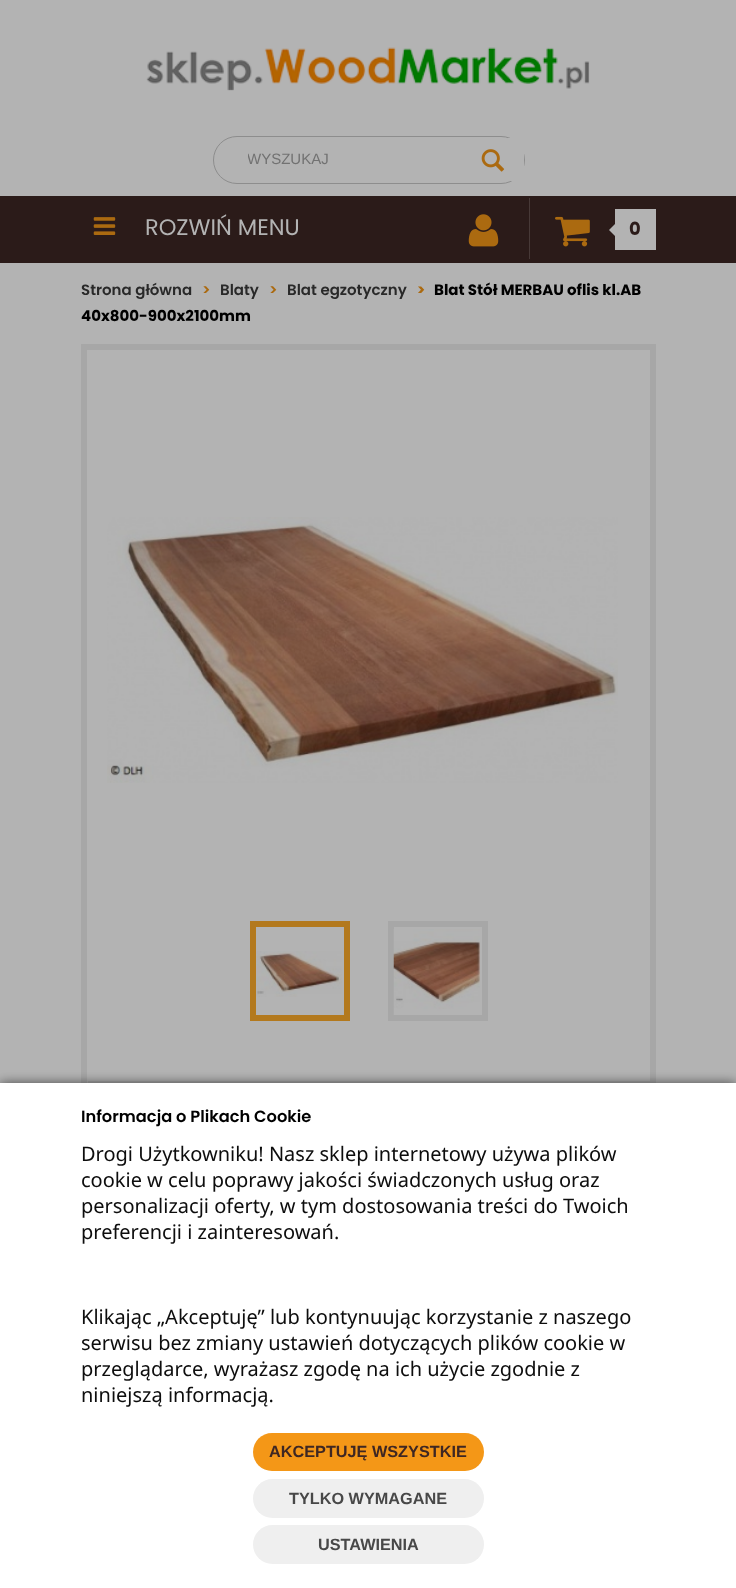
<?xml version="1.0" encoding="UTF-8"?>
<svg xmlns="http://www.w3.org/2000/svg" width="736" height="1588">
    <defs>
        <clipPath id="clip1"><rect x="248" y="151" width="261" height="18"/></clipPath>
        <filter id="blur1" x="-50%" y="-200%" width="200%" height="500%"><feGaussianBlur stdDeviation="6"/></filter>
    </defs>
    <rect width="100%" height="100%" fill="#2B1B19"/>
    <rect x="0" y="0" width="736" height="196" fill="#B3B3B3"/>
    <image x="146" y="47" width="444" height="44" href="img_01.png"/>
    <rect x="213.5" y="136.5" width="311" height="47" rx="23.5" fill="none" stroke="#8D8D8D"/>
    <rect x="508" y="138" width="16" height="43" fill="#B3B3B3"/>
    <g clip-path="url(#clip1)">
        <text x="247" y="164" font-family="Liberation Sans" font-size="15" fill="#727272">WYSZUKAJ</text>
    </g>
    <image x="481" y="149" width="24" height="23" href="img_02.png"/>
    <image x="93" y="217" width="23" height="18" href="img_03.png"/>
    <text x="145" y="235" font-family="Poppins" font-size="22.5" fill="#B3B3B3">ROZWIŃ MENU</text>
    <image x="468" y="214" width="31" height="33" href="img_04.png"/>
    <rect x="529" y="198" width="1" height="61" fill="#473937"/>
    <image x="555" y="216" width="35" height="31" href="img_05.png"/>
    <rect x="615" y="209" width="41" height="41" fill="#B3B3B3"/>
    <path d="M 615 224 V 236 L 609 230 Z" fill="#B3B3B3"/>
    <text x="629" y="235" font-family="Poppins" font-size="18" font-weight="700" fill="#2B1B19">0</text>
    <rect x="0" y="263" width="736" height="820" fill="#B3B3B3"/>
    <text x="81" y="295" font-family="Poppins" font-size="15" font-weight="600" fill="#292929">Strona główna</text>
    <text x="202" y="295" font-family="Poppins" font-size="15" font-weight="600" fill="#AB6A10">&gt;</text>
    <text x="220" y="295" font-family="Poppins" font-size="15" font-weight="600" fill="#292929">Blaty</text>
    <text x="269" y="295" font-family="Poppins" font-size="15" font-weight="600" fill="#AB6A10">&gt;</text>
    <text x="287" y="295" font-family="Poppins" font-size="15" font-weight="600" fill="#292929">Blat egzotyczny</text>
    <text x="417" y="295" font-family="Poppins" font-size="15" font-weight="700" fill="#AB6A10">&gt;</text>
    <text x="434" y="295" font-family="Poppins" font-size="15" font-weight="700" fill="#000000">Blat Stół MERBAU oflis kl.AB</text>
    <text x="81" y="321" font-family="Poppins" font-size="15" font-weight="700" fill="#000000">40x800-900x2100mm</text>
    <rect x="84" y="347" width="569" height="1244" fill="none" stroke="#A7A7A7" stroke-width="6"/>
    <image x="107" y="517" width="511" height="266" href="img_06.png"/>
    <rect x="253" y="924" width="94" height="94" fill="none" stroke="#B3791D" stroke-width="6"/>
    <image x="256" y="951" width="86" height="46" href="img_07.png"/>
    <rect x="391" y="924" width="94" height="94" fill="none" stroke="#A7A7A7" stroke-width="6"/>
    <image x="393" y="929" width="87" height="86" href="img_08.png"/>
    <rect x="88" y="1081" width="562" height="2" fill="#A7A7A7"/>
    <rect x="0" y="1083" width="736" height="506" fill="#000000" fill-opacity="0.6" filter="url(#blur1)"/>
    <rect x="0" y="1083" width="736" height="505" fill="#FFFFFF"/>
    <text x="81" y="1122" font-family="Poppins" font-size="16.25" font-weight="600" fill="#000000">Informacja o Plikach Cookie</text>
    <text font-family="Noto Sans" font-size="20" fill="#0D0D0D">
        <tspan x="81" y="1161">Drogi Użytkowniku! Nasz sklep internetowy używa plików</tspan>
        <tspan x="81" y="1187">cookie w celu poprawy jakości świadczonych usług oraz</tspan>
        <tspan x="81" y="1213">personalizacji oferty, w tym dostosowania treści do Twoich</tspan>
        <tspan x="81" y="1239">preferencji i zainteresowań.</tspan>
    </text>
    <text font-family="Noto Sans" font-size="20" fill="#0D0D0D">
        <tspan x="81" y="1324">Klikając „Akceptuję” lub kontynuując korzystanie z naszego</tspan>
        <tspan x="81" y="1350">serwisu bez zmiany ustawień dotyczących plików cookie w</tspan>
        <tspan x="81" y="1376">przeglądarce, wyrażasz zgodę na ich użycie zgodnie z</tspan>
        <tspan x="81" y="1402">niniejszą informacją.</tspan>
    </text>
    <rect x="253" y="1433" width="231" height="38" rx="19" fill="#F49717"/>
    <text x="269" y="1457" font-family="Liberation Sans" font-size="16.25" font-weight="700" fill="#3E2723">AKCEPTUJĘ WSZYSTKIE</text>
    <rect x="253" y="1479" width="231" height="39" rx="19.5" fill="#EFEFEF"/>
    <text x="289" y="1504" font-family="Liberation Sans" font-size="16.25" font-weight="700" fill="#484848">TYLKO WYMAGANE</text>
    <rect x="253" y="1525" width="231" height="39" rx="19.5" fill="#EFEFEF"/>
    <text x="318" y="1550" font-family="Liberation Sans" font-size="16.25" font-weight="700" fill="#484848">USTAWIENIA</text>
</svg>
